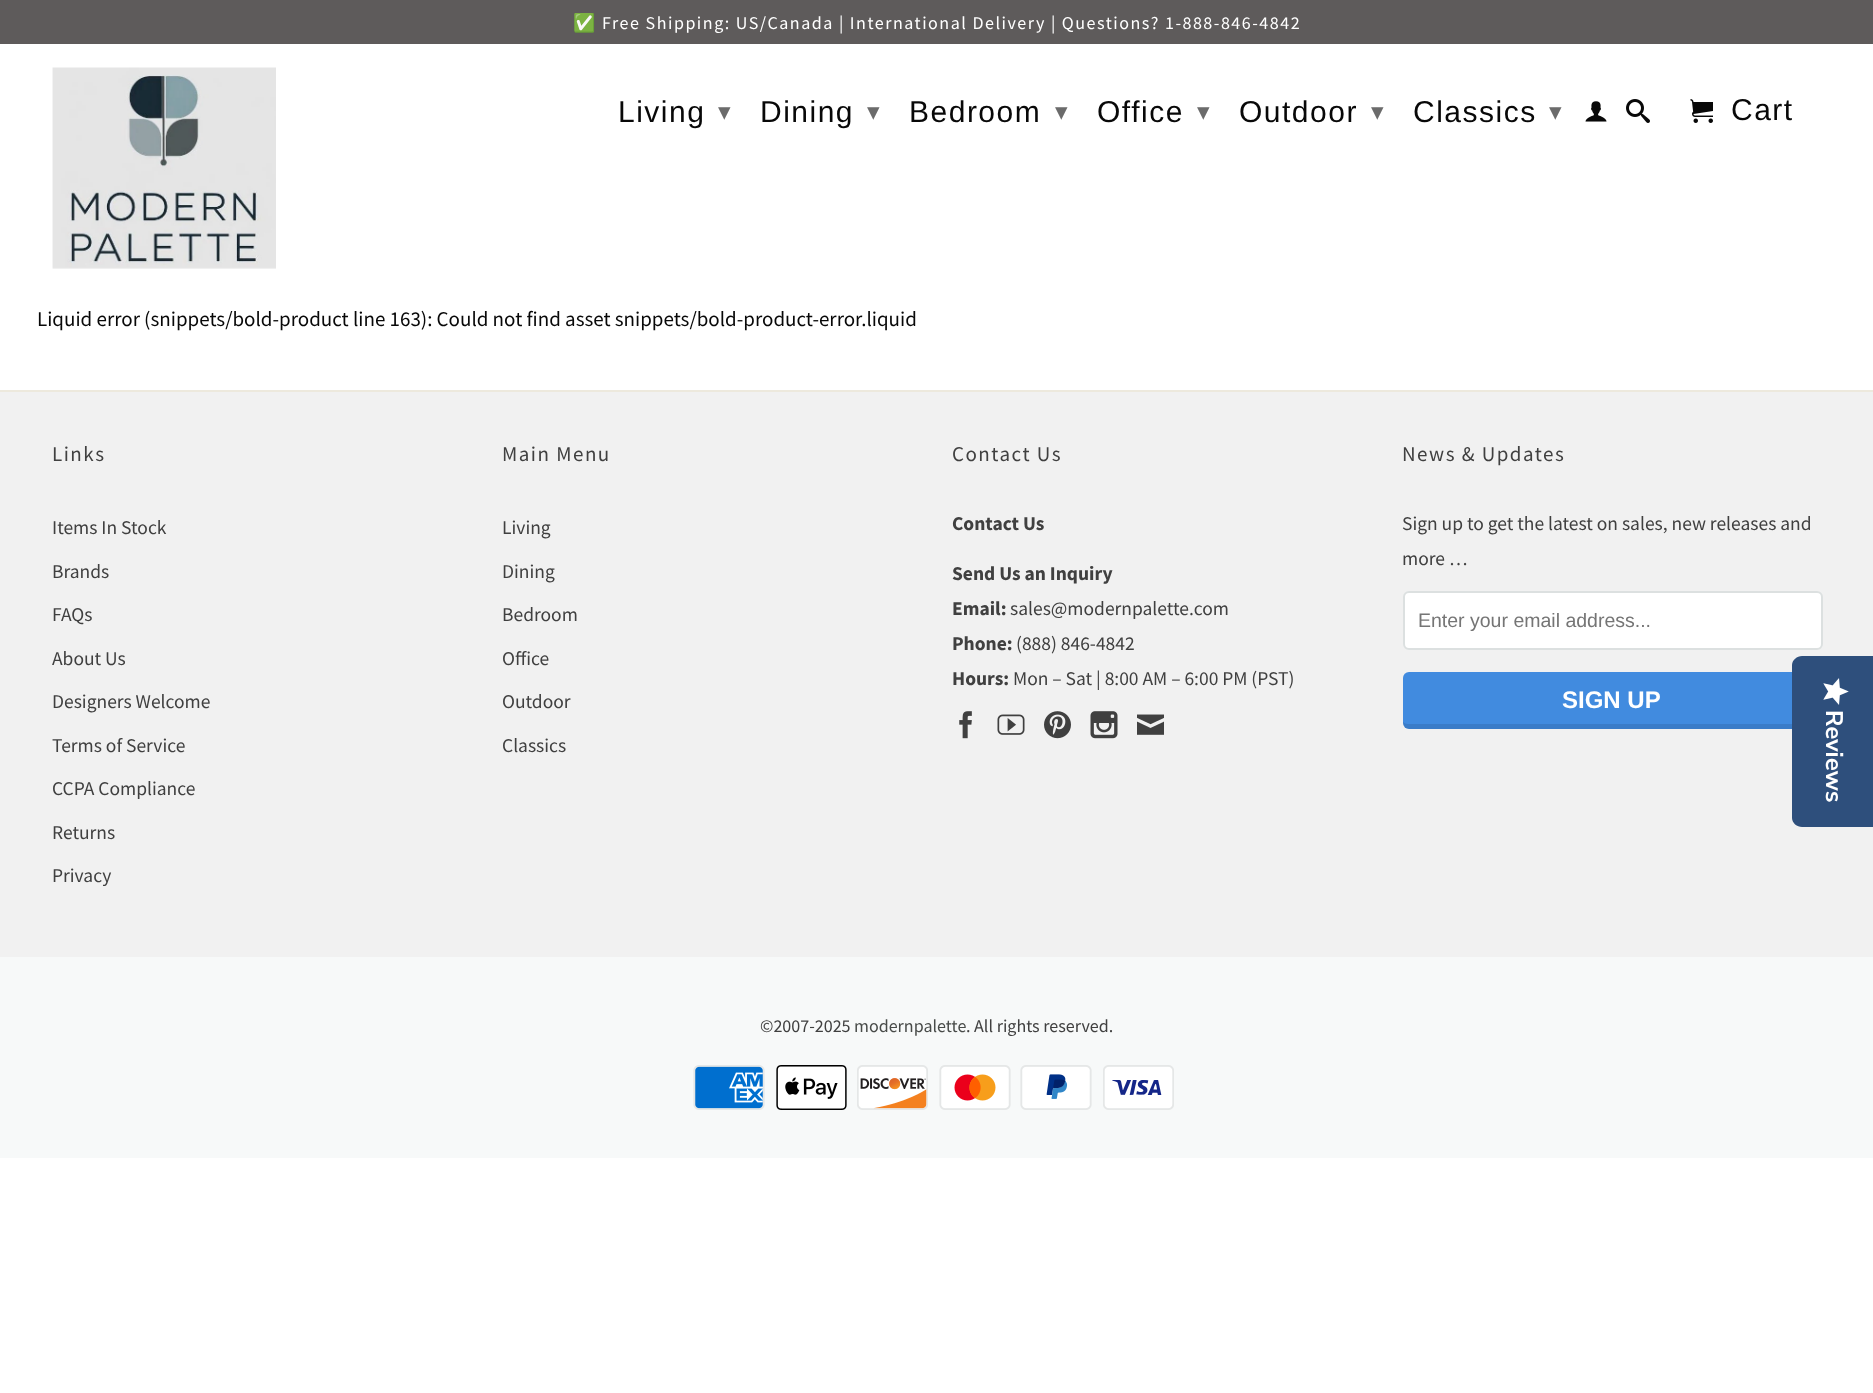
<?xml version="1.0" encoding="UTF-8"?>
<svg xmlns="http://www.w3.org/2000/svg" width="1873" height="1393">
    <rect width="100%" height="100%" fill="#FFFFFF"/>
    <rect x="0" y="0" width="1873" height="44" fill="#5E5B5B"/>
    <text x="573" y="29" font-family="Noto Color Emoji" font-size="18" letter-spacing="1.5" fill="#FFFFFF">✅</text>
    <text x="602" y="29" font-family="Source Sans Pro" font-size="18" letter-spacing="1.5" fill="#FFFFFF">Free Shipping: US/Canada | International Delivery | Questions? 1-888-846-4842</text>
    <image x="52" y="67" width="224" height="202" href="img_01.png"/>
    <text x="618" y="122" font-family="Liberation Sans" font-size="30" letter-spacing="1.5" fill="#080808">Living</text>
    <text x="718" y="120" font-family="DejaVu Sans" font-size="25" letter-spacing="1.5" fill="#6B6B6B">▾</text>
    <text x="760" y="122" font-family="Liberation Sans" font-size="30" letter-spacing="1.5" fill="#080808">Dining</text>
    <text x="867" y="120" font-family="DejaVu Sans" font-size="25" letter-spacing="1.5" fill="#6B6B6B">▾</text>
    <text x="909" y="122" font-family="Liberation Sans" font-size="30" letter-spacing="1.5" fill="#080808">Bedroom</text>
    <text x="1055" y="120" font-family="DejaVu Sans" font-size="25" letter-spacing="1.5" fill="#6B6B6B">▾</text>
    <text x="1097" y="122" font-family="Liberation Sans" font-size="30" letter-spacing="1.5" fill="#080808">Office</text>
    <text x="1197" y="120" font-family="DejaVu Sans" font-size="25" letter-spacing="1.5" fill="#6B6B6B">▾</text>
    <text x="1239" y="122" font-family="Liberation Sans" font-size="30" letter-spacing="1.5" fill="#080808">Outdoor</text>
    <text x="1371" y="120" font-family="DejaVu Sans" font-size="25" letter-spacing="1.5" fill="#6B6B6B">▾</text>
    <text x="1413" y="122" font-family="Liberation Sans" font-size="30" letter-spacing="1.5" fill="#080808">Classics</text>
    <text x="1549" y="120" font-family="DejaVu Sans" font-size="25" letter-spacing="1.5" fill="#6B6B6B">▾</text>
    <image x="1585" y="101" width="22" height="21" href="img_02.png"/>
    <image x="1626" y="99" width="24" height="24" href="img_03.png"/>
    <image x="1690" y="99" width="23" height="24" href="img_04.png"/>
    <text x="1731" y="120" font-family="Liberation Sans" font-size="30" letter-spacing="1.5" fill="#080808">Cart</text>
    <text x="37" y="326" font-family="Source Sans Pro" font-size="21" fill="#080808">Liquid error (snippets/bold-product line 163): Could not find asset snippets/bold-product-error.liquid</text>
    <rect x="0" y="392" width="1873" height="565" fill="#F1F1F1"/>
    <rect x="0" y="390" width="1873" height="2" fill="#EDE9DD"/>
    <text x="52" y="461" font-family="Source Sans Pro" font-size="21" letter-spacing="1.5" fill="#404040">Links</text>
    <text x="52" y="534" font-family="Source Sans Pro" font-size="19.5" fill="#404040">Items In Stock</text>
    <text x="52" y="578" font-family="Source Sans Pro" font-size="19.5" fill="#404040">Brands</text>
    <text x="52" y="621" font-family="Source Sans Pro" font-size="19.5" fill="#404040">FAQs</text>
    <text x="52" y="665" font-family="Source Sans Pro" font-size="19.5" fill="#404040">About Us</text>
    <text x="52" y="708" font-family="Source Sans Pro" font-size="19.5" fill="#404040">Designers Welcome</text>
    <text x="52" y="752" font-family="Source Sans Pro" font-size="19.5" fill="#404040">Terms of Service</text>
    <text x="52" y="795" font-family="Source Sans Pro" font-size="19.5" fill="#404040">CCPA Compliance</text>
    <text x="52" y="839" font-family="Source Sans Pro" font-size="19.5" fill="#404040">Returns</text>
    <text x="52" y="882" font-family="Source Sans Pro" font-size="19.5" fill="#404040">Privacy</text>
    <text x="502" y="461" font-family="Source Sans Pro" font-size="21" letter-spacing="1.5" fill="#404040">Main Menu</text>
    <text x="502" y="534" font-family="Source Sans Pro" font-size="19.5" fill="#404040">Living</text>
    <text x="502" y="578" font-family="Source Sans Pro" font-size="19.5" fill="#404040">Dining</text>
    <text x="502" y="621" font-family="Source Sans Pro" font-size="19.5" fill="#404040">Bedroom</text>
    <text x="502" y="665" font-family="Source Sans Pro" font-size="19.5" fill="#404040">Office</text>
    <text x="502" y="708" font-family="Source Sans Pro" font-size="19.5" fill="#404040">Outdoor</text>
    <text x="502" y="752" font-family="Source Sans Pro" font-size="19.5" fill="#404040">Classics</text>
    <text x="952" y="461" font-family="Source Sans Pro" font-size="21" letter-spacing="1.5" fill="#404040">Contact Us</text>
    <text x="952" y="530" font-family="Source Sans Pro" font-size="19.5" font-weight="700" fill="#404040">Contact Us</text>
    <text font-family="Source Sans Pro" font-size="19.5" font-weight="700" fill="#404040">
        <tspan x="952" y="580">Send Us an Inquiry</tspan>
        <tspan x="952" y="615">Email:</tspan>
    </text>
    <text x="1010" y="615" font-family="Source Sans Pro" font-size="19.5" fill="#404040">sales@modernpalette.com</text>
    <text x="952" y="650" font-family="Source Sans Pro" font-size="19.5" font-weight="700" fill="#404040">Phone:</text>
    <text x="1016" y="650" font-family="Source Sans Pro" font-size="19.5" fill="#404040">(888) 846-4842</text>
    <text x="952" y="685" font-family="Source Sans Pro" font-size="19.5" font-weight="700" fill="#404040">Hours:</text>
    <text x="1013" y="685" font-family="Source Sans Pro" font-size="19.5" fill="#404040">Mon – Sat | 8:00 AM – 6:00 PM (PST)</text>
    <image x="959" y="711" width="13" height="28" href="img_05.png"/>
    <image x="997" y="714" width="28" height="21" href="img_06.png"/>
    <image x="1044" y="711" width="27" height="28" href="img_07.png"/>
    <image x="1090" y="711" width="28" height="28" href="img_08.png"/>
    <image x="1137" y="714" width="27" height="21" href="img_09.png"/>
    <text x="1402" y="461" font-family="Source Sans Pro" font-size="21" letter-spacing="1.5" fill="#404040">News &amp; Updates</text>
    <text font-family="Source Sans Pro" font-size="19.5" fill="#404040">
        <tspan x="1402" y="530">Sign up to get the latest on sales, new releases and</tspan>
        <tspan x="1402" y="565">more …</tspan>
    </text>
    <rect x="1404" y="592" width="418" height="57" rx="5" fill="#FFFFFF" stroke="#DCE0E0" stroke-width="2"/>
    <text x="1418" y="627" font-family="Liberation Sans" font-size="19.5" fill="#757575">Enter your email address...</text>
    <rect x="1403" y="672" width="420" height="57" rx="6" fill="#418BDF"/>
    <path d="M 1403 722 V 723 C 1403 726 1406 729 1409 729 H 1817 C 1820 729 1823 726 1823 723 V 678 C 1823 677 1823 676 1822 675 V 718 C 1822 722 1820 724 1816 724 H 1408 C 1406 724 1404 723 1403 722 Z" fill="#000000" fill-opacity="0.1"/>
    <text x="1562" y="708" font-family="Liberation Sans" font-size="24" font-weight="700" fill="#FFFFFF">SIGN UP</text>
    <rect x="0" y="957" width="1873" height="201" fill="#F7F9F9"/>
    <text x="760" y="1032" font-family="Source Sans Pro" font-size="18" fill="#404040">©2007-2025</text>
    <text x="854" y="1032" font-family="Source Sans Pro" font-size="18" fill="#484B49">modernpalette</text>
    <text x="966" y="1032" font-family="Source Sans Pro" font-size="18" fill="#404040">. All rights reserved.</text>
    <image x="693" y="1065" width="72" height="45" href="img_10.png"/>
    <image x="776" y="1065" width="71" height="45" href="img_11.png"/>
    <image x="857" y="1065" width="71" height="45" href="img_12.png"/>
    <image x="939" y="1065" width="72" height="45" href="img_13.png"/>
    <image x="1020" y="1065" width="72" height="45" href="img_14.png"/>
    <image x="1103" y="1065" width="71" height="45" href="img_15.png"/>
    <path d="M 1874 656 V 827 H 1802 C 1797 827 1792 823 1792 818 V 665 C 1792 660 1797 656 1802 656 Z" fill="#2E4F7C"/>
    <image x="1823" y="678" width="26" height="27" href="img_16.png"/>
    <text x="1826" y="710" transform="rotate(90 1826 710)" font-family="Nunito Sans" font-size="24" font-weight="200" fill="#FFFFFF">Reviews</text>
</svg>
